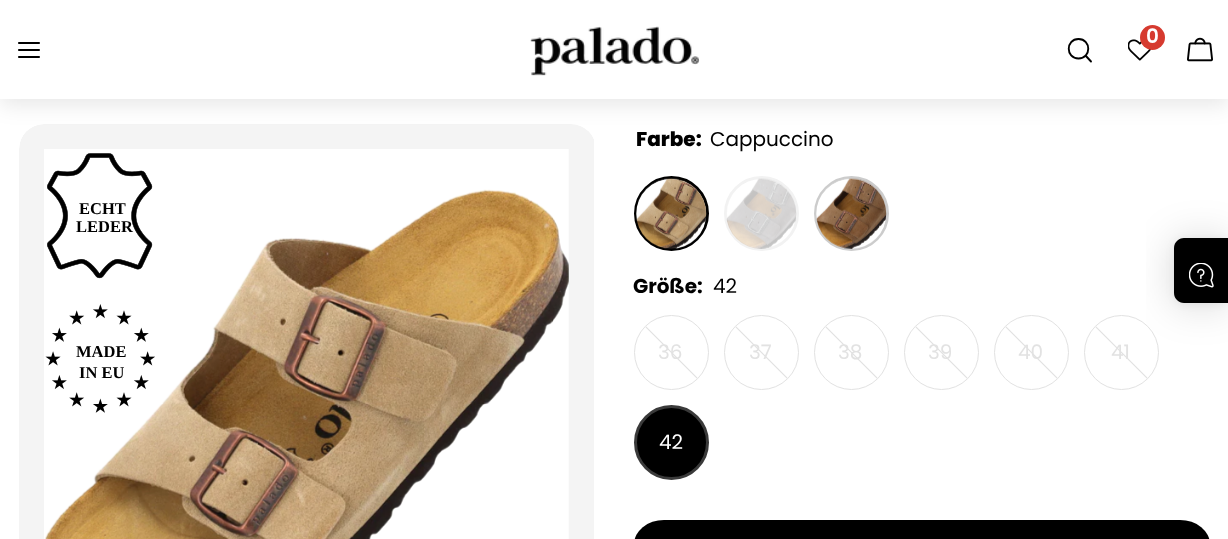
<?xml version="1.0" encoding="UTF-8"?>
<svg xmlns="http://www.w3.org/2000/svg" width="1228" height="539">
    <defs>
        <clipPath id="clip1"><rect x="19" y="124" width="577" height="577" rx="25"/></clipPath>
        <filter id="blur1" x="-50%" y="-200%" width="200%" height="500%"><feGaussianBlur stdDeviation="11"/></filter>
        <linearGradient id="g1" gradientUnits="userSpaceOnUse" x1="708" y1="316" x2="635" y2="389"><stop offset="0.49" stop-color="#E2E2E2" stop-opacity="0"/><stop offset="0.5" stop-color="#E2E2E2"/><stop offset="0.51" stop-color="#E2E2E2" stop-opacity="0"/></linearGradient>
        <linearGradient id="g2" gradientUnits="userSpaceOnUse" x1="798" y1="316" x2="725" y2="389"><stop offset="0.49" stop-color="#E2E2E2" stop-opacity="0"/><stop offset="0.5" stop-color="#E2E2E2"/><stop offset="0.51" stop-color="#E2E2E2" stop-opacity="0"/></linearGradient>
        <linearGradient id="g3" gradientUnits="userSpaceOnUse" x1="888" y1="316" x2="815" y2="389"><stop offset="0.49" stop-color="#E2E2E2" stop-opacity="0"/><stop offset="0.5" stop-color="#E2E2E2"/><stop offset="0.51" stop-color="#E2E2E2" stop-opacity="0"/></linearGradient>
        <linearGradient id="g4" gradientUnits="userSpaceOnUse" x1="978" y1="316" x2="905" y2="389"><stop offset="0.49" stop-color="#E2E2E2" stop-opacity="0"/><stop offset="0.5" stop-color="#E2E2E2"/><stop offset="0.51" stop-color="#E2E2E2" stop-opacity="0"/></linearGradient>
        <linearGradient id="g5" gradientUnits="userSpaceOnUse" x1="1068" y1="316" x2="995" y2="389"><stop offset="0.49" stop-color="#E2E2E2" stop-opacity="0"/><stop offset="0.5" stop-color="#E2E2E2"/><stop offset="0.51" stop-color="#E2E2E2" stop-opacity="0"/></linearGradient>
        <linearGradient id="g6" gradientUnits="userSpaceOnUse" x1="1158" y1="316" x2="1085" y2="389"><stop offset="0.49" stop-color="#E2E2E2" stop-opacity="0"/><stop offset="0.5" stop-color="#E2E2E2"/><stop offset="0.51" stop-color="#E2E2E2" stop-opacity="0"/></linearGradient>
        <filter id="blur2" x="-50%" y="-200%" width="200%" height="500%"><feGaussianBlur stdDeviation="20"/></filter>
        <filter id="blur3" x="-50%" y="-200%" width="200%" height="500%"><feGaussianBlur stdDeviation="4"/></filter>
    </defs>
    <rect width="100%" height="100%" fill="#FFFFFF"/>
    <g clip-path="url(#clip1)">
        <g clip-path="url(#clip1)">
            <path d="M 44 124 H 594 V 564 H 44 C 30 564 19 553 19 539 V 149 C 19 135 30 124 44 124 Z" fill="#F4F4F4"/>
        </g>
    </g>
    <rect x="0" y="5" width="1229" height="99" fill="#000000" fill-opacity="0.1" filter="url(#blur1)"/>
    <rect x="0" y="0" width="1228" height="99" fill="#FFFFFF"/>
    <image x="530" y="26" width="170" height="50" href="img_01.png"/>
    <image x="1128" y="39" width="24" height="22" href="img_02.png"/>
    <circle cx="1152.5" cy="37.5" r="12.5" fill="#D63A2F"/>
    <text x="1146" y="43" font-family="Poppins" font-size="20" font-weight="600" fill="#FFFFFF">0</text>
    <path d="M 1078.5 58.5 C 1091.5 58.5 1091.5 39 1078.5 39 C 1065.5 39 1065.5 58.5 1078.5 58.5 Z M 1085.5 55.5 L 1091 61.5" fill="none" stroke="#000000" stroke-width="1.9" stroke-linecap="round" stroke-linejoin="round"/>
    <image x="1187" y="37" width="26" height="25" href="img_03.png"/>
    <path d="M 19 50 H 39 M 19 43 H 39 M 19 57 H 39" fill="none" stroke="#000000" stroke-width="2.1" stroke-linecap="round" stroke-linejoin="round"/>
    <image x="44" y="149" width="525" height="390" href="img_04.png"/>
    <text x="79" y="214" font-family="Liberation Serif" font-size="16.5" font-weight="700" fill="#000000">ECHT</text>
    <text x="76" y="232" font-family="Liberation Serif" font-size="16.5" font-weight="700" fill="#000000">LEDER</text>
    <image x="47" y="153" width="106" height="126" href="img_05.png"/>
    <text x="76" y="357" font-family="Liberation Serif" font-size="16.5" font-weight="700" fill="#000000">MADE</text>
    <text x="79" y="378" font-family="Liberation Serif" font-size="16.5" font-weight="700" fill="#000000">IN EU</text>
    <image x="45" y="304" width="110" height="109" href="img_06.png"/>
    <text x="636" y="146" font-family="Poppins" font-size="20" font-weight="800" fill="#000000">Farbe:</text>
    <text x="710" y="146" font-family="Poppins" font-size="20" fill="#000000">Cappuccino</text>
    <circle cx="671.5" cy="213.5" r="36" fill="none" stroke="#000000" stroke-width="3"/>
    <image x="636" y="178" width="71" height="71" href="img_07.png"/>
    <circle cx="761.5" cy="213.5" r="36" fill="none" stroke="#F2F2F2" stroke-width="3"/>
    <image x="726" y="178" width="71" height="71" href="img_08.png"/>
    <circle cx="851.5" cy="213.5" r="36" fill="none" stroke="#CCCCCC" stroke-width="3"/>
    <image x="816" y="178" width="71" height="71" href="img_09.png"/>
    <text x="633" y="293" font-family="Poppins" font-size="20" font-weight="700" fill="#000000">Größe:</text>
    <text x="713" y="293" font-family="Poppins" font-size="20" fill="#000000">42</text>
    <circle cx="671.5" cy="352.5" r="37" fill="none" stroke="#E2E2E2"/>
    <circle cx="671.5" cy="352.5" r="36.5" fill="url(#g1)"/>
    <text x="658" y="359" font-family="Poppins" font-size="20" fill="#E2E2E2">36</text>
    <circle cx="761.5" cy="352.5" r="37" fill="none" stroke="#E2E2E2"/>
    <circle cx="761.5" cy="352.5" r="36.5" fill="url(#g2)"/>
    <text x="749" y="359" font-family="Poppins" font-size="20" fill="#E2E2E2">37</text>
    <circle cx="851.5" cy="352.5" r="37" fill="none" stroke="#E2E2E2"/>
    <circle cx="851.5" cy="352.5" r="36.5" fill="url(#g3)"/>
    <text x="838" y="359" font-family="Poppins" font-size="20" fill="#E2E2E2">38</text>
    <circle cx="941.5" cy="352.5" r="37" fill="none" stroke="#E2E2E2"/>
    <circle cx="941.5" cy="352.5" r="36.5" fill="url(#g4)"/>
    <text x="928" y="359" font-family="Poppins" font-size="20" fill="#E2E2E2">39</text>
    <circle cx="1031.5" cy="352.5" r="37" fill="none" stroke="#E2E2E2"/>
    <circle cx="1031.5" cy="352.5" r="36.5" fill="url(#g5)"/>
    <text x="1018" y="359" font-family="Poppins" font-size="20" fill="#E2E2E2">40</text>
    <circle cx="1121.5" cy="352.5" r="37" fill="none" stroke="#E2E2E2"/>
    <circle cx="1121.5" cy="352.5" r="36.5" fill="url(#g6)"/>
    <text x="1111" y="359" font-family="Poppins" font-size="20" fill="#E2E2E2">41</text>
    <circle cx="671.5" cy="442.5" r="36" fill="#000000" stroke="#3A3A3A" stroke-width="3"/>
    <text x="659" y="449" font-family="Poppins" font-size="20" fill="#FFFFFF">42</text>
    <rect x="634" y="520" width="576" height="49" rx="30" fill="#000000"/>
    <rect x="1174" y="240" width="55" height="65" rx="10" fill="#000000" fill-opacity="0.16" filter="url(#blur2)"/>
    <rect x="1174" y="239" width="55" height="65" rx="10" fill="#000000" fill-opacity="0.06" filter="url(#blur3)"/>
    <path d="M 1184 238 H 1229 V 303 H 1184 C 1178.5 303 1174 298.5 1174 293 V 248 C 1174 242.5 1178.5 238 1184 238 Z" fill="#000000"/>
    <image x="1189" y="263" width="25" height="25" href="img_10.png"/>
</svg>
